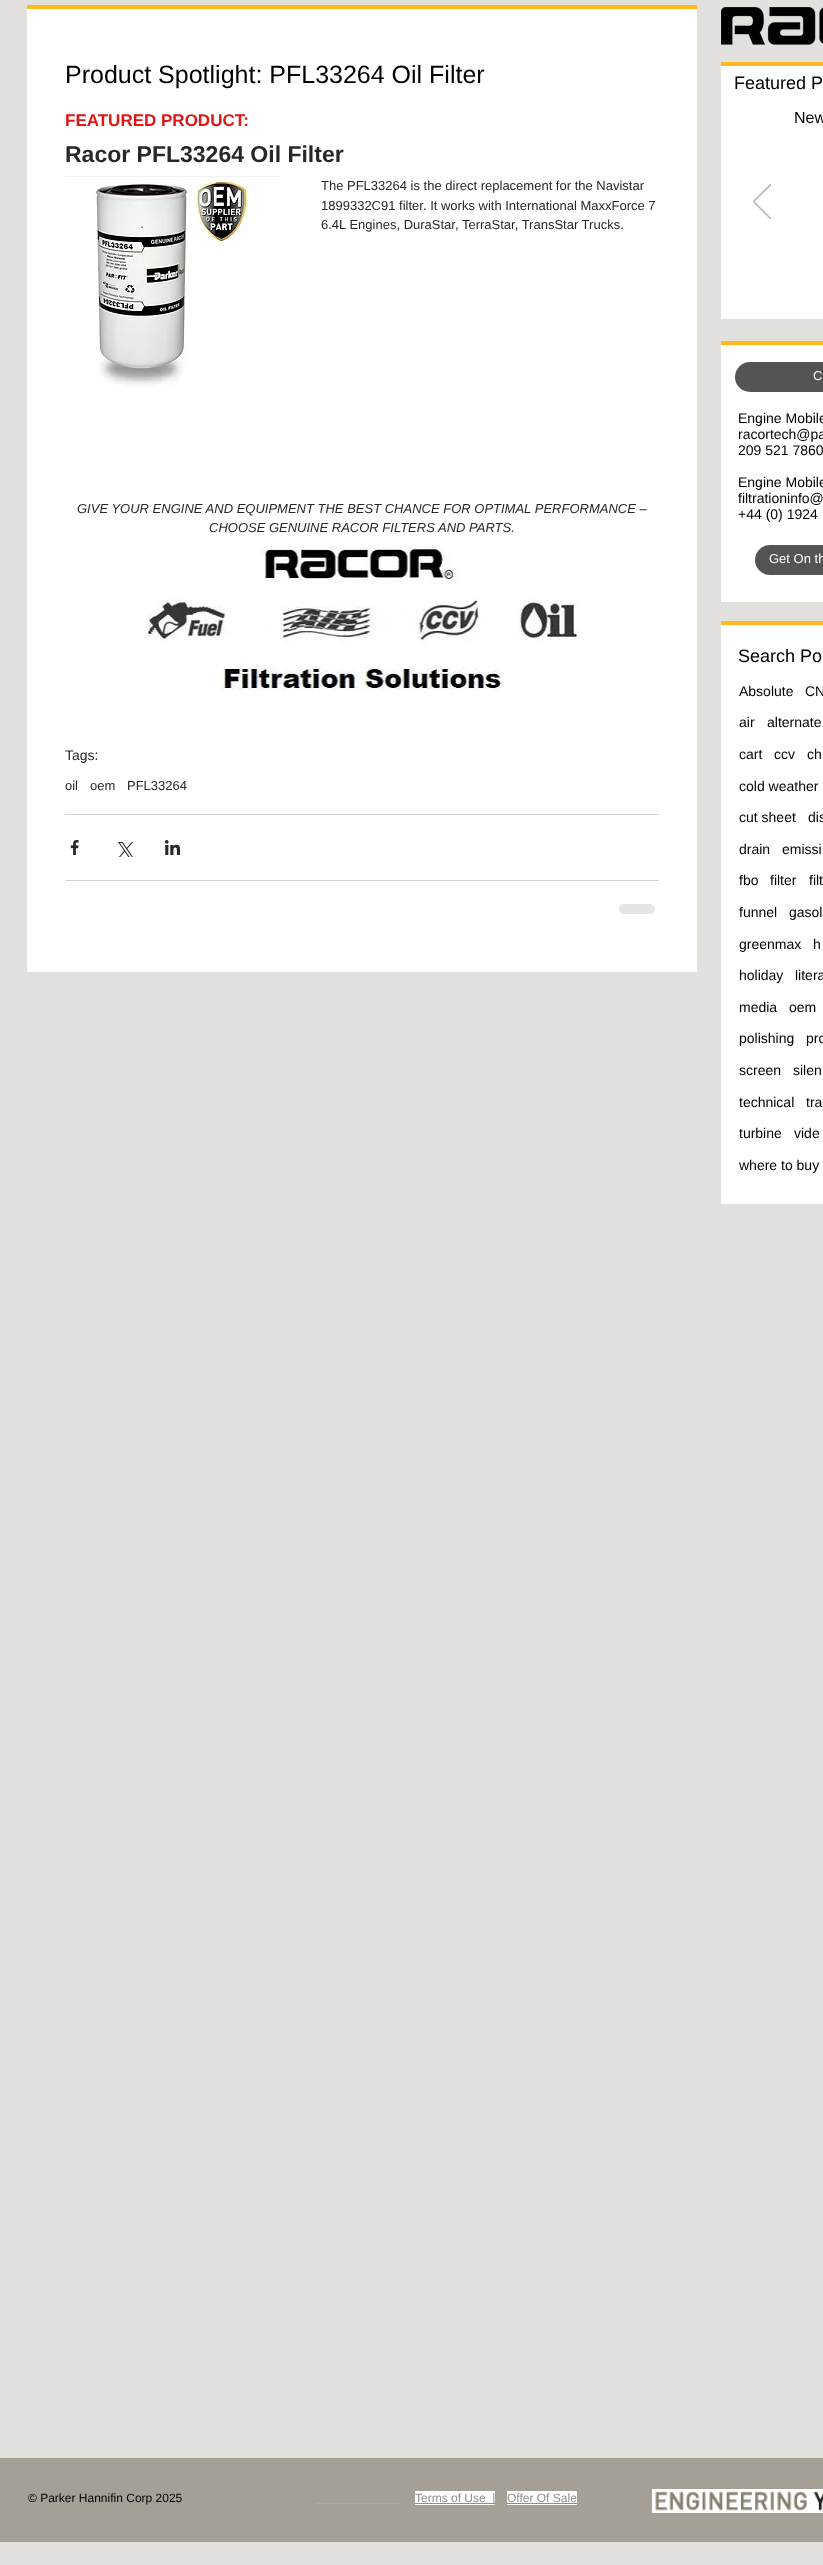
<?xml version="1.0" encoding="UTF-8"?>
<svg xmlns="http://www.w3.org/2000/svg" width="823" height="2565">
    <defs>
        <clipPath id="clip1"><rect x="753" y="184" width="18" height="35"/></clipPath>
    </defs>
    <rect width="100%" height="100%" fill="#E2E1DD"/>
    <rect x="27" y="5" width="670" height="4" fill="#FFB91D"/>
    <image x="721" y="7" width="102" height="38" href="img_01.png"/>
    <rect x="27" y="9" width="670" height="963" fill="#FFFFFF"/>
    <text x="65" y="83" font-family="Liberation Sans" font-size="25" fill="#000000">Product Spotlight: PFL33264 Oil Filter</text>
    <text x="65" y="126" font-family="Liberation Sans" font-size="17" font-weight="700" fill="#E21515">FEATURED PRODUCT:</text>
    <text x="65" y="162" font-family="Liberation Sans" font-size="23" font-weight="700" fill="#272727">Racor PFL33264 Oil Filter</text>
    <image x="65" y="176" width="216" height="211" href="img_02.png"/>
    <text font-family="Liberation Sans" font-size="13" fill="#272727">
        <tspan x="321" y="190">The PFL33264 is the direct replacement for the Navistar</tspan>
        <tspan x="321" y="210">1899332C91 filter. It works with International MaxxForce 7</tspan>
        <tspan x="321" y="229">6.4L Engines, DuraStar, TerraStar, TransStar Trucks.</tspan>
    </text>
    <text x="77" y="513" font-family="Liberation Sans" font-size="13" font-style="italic" fill="#272727">GIVE YOUR ENGINE AND EQUIPMENT THE BEST CHANCE FOR OPTIMAL PERFORMANCE –</text>
    <text x="209" y="532" font-family="Liberation Sans" font-size="13" font-style="italic" fill="#272727">CHOOSE GENUINE RACOR FILTERS AND PARTS.</text>
    <image x="145" y="546" width="433" height="147" href="img_03.png"/>
    <text x="65" y="760" font-family="Liberation Sans" font-size="14" fill="#272727">Tags:</text>
    <text x="65" y="790" font-family="Liberation Sans" font-size="13" fill="#272727">oil</text>
    <text x="90" y="790" font-family="Liberation Sans" font-size="13" fill="#272727">oem</text>
    <text x="127" y="790" font-family="Liberation Sans" font-size="13" fill="#272727">PFL33264</text>
    <rect x="65" y="814" width="594" height="1" fill="#D4D4D4"/>
    <image x="70" y="840" width="9" height="15" href="img_04.png"/>
    <image x="118" y="842" width="15" height="15" href="img_05.png"/>
    <image x="165" y="840" width="15" height="15" href="img_06.png"/>
    <rect x="65" y="880" width="594" height="1" fill="#D4D4D4"/>
    <rect x="619" y="904" width="36" height="10" rx="5" fill="#E5E5E5"/>
    <rect x="721" y="62" width="102" height="4" fill="#FFB91D"/>
    <rect x="721" y="66" width="102" height="253" fill="#FFFFFF"/>
    <text x="734" y="89" font-family="Liberation Sans" font-size="18" fill="#000000">Featured P</text>
    <text x="794" y="123" font-family="Liberation Sans" font-size="16" fill="#000000">New</text>
    <g clip-path="url(#clip1)">
        <path d="M 770.5 219 L 753 201.5 L 770.5 184 L 771 185 L 754 201.5 L 771 218.5 Z" fill="none" stroke="#999999" stroke-width="0.9"/>
    </g>
    <rect x="721" y="341" width="102" height="4" fill="#FFB91D"/>
    <rect x="721" y="345" width="102" height="257" fill="#FFFFFF"/>
    <rect x="735" y="362" width="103" height="30" rx="15" fill="#545454"/>
    <text x="813" y="380" font-family="Liberation Sans" font-size="13" fill="#FFFFFF">C</text>
    <text font-family="Liberation Sans" font-size="14" fill="#000000">
        <tspan x="738" y="423">Engine Mobile</tspan>
        <tspan x="738" y="439">racortech@pa</tspan>
        <tspan x="738" y="455">209 521 7860</tspan>
    </text>
    <text font-family="Liberation Sans" font-size="14" fill="#000000">
        <tspan x="738" y="487">Engine Mobile</tspan>
        <tspan x="738" y="503">filtrationinfo@</tspan>
        <tspan x="738" y="519">+44 (0) 1924</tspan>
    </text>
    <rect x="755" y="545" width="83" height="30" rx="15" fill="#545454"/>
    <text x="769" y="563" font-family="Liberation Sans" font-size="13" fill="#FFFFFF">Get On th</text>
    <rect x="721" y="621" width="102" height="4" fill="#FFB91D"/>
    <rect x="721" y="625" width="102" height="579" fill="#FFFFFF"/>
    <text x="738" y="662" font-family="Liberation Sans" font-size="18" fill="#000000">Search Po</text>
    <text x="739" y="696" font-family="Liberation Sans" font-size="14" fill="#000000">Absolute</text>
    <text x="805" y="696" font-family="Liberation Sans" font-size="14" fill="#000000">CN</text>
    <text x="739" y="727" font-family="Liberation Sans" font-size="14" fill="#000000">air</text>
    <text x="767" y="727" font-family="Liberation Sans" font-size="14" fill="#000000">alternate</text>
    <text x="739" y="759" font-family="Liberation Sans" font-size="14" fill="#000000">cart</text>
    <text x="774" y="759" font-family="Liberation Sans" font-size="14" fill="#000000">ccv</text>
    <text x="807" y="759" font-family="Liberation Sans" font-size="14" fill="#000000">ch</text>
    <text x="739" y="791" font-family="Liberation Sans" font-size="14" fill="#000000">cold weather</text>
    <text x="739" y="822" font-family="Liberation Sans" font-size="14" fill="#000000">cut sheet</text>
    <text x="808" y="822" font-family="Liberation Sans" font-size="14" fill="#000000">dis</text>
    <text x="739" y="854" font-family="Liberation Sans" font-size="14" fill="#000000">drain</text>
    <text x="782" y="854" font-family="Liberation Sans" font-size="14" fill="#000000">emissi</text>
    <text x="739" y="885" font-family="Liberation Sans" font-size="14" fill="#000000">fbo</text>
    <text x="770" y="885" font-family="Liberation Sans" font-size="14" fill="#000000">filter</text>
    <text x="809" y="885" font-family="Liberation Sans" font-size="14" fill="#000000">filt</text>
    <text x="739" y="917" font-family="Liberation Sans" font-size="14" fill="#000000">funnel</text>
    <text x="789" y="917" font-family="Liberation Sans" font-size="14" fill="#000000">gasol</text>
    <text x="739" y="949" font-family="Liberation Sans" font-size="14" fill="#000000">greenmax</text>
    <text x="813" y="949" font-family="Liberation Sans" font-size="14" fill="#000000">h</text>
    <text x="739" y="980" font-family="Liberation Sans" font-size="14" fill="#000000">holiday</text>
    <text x="795" y="980" font-family="Liberation Sans" font-size="14" fill="#000000">litera</text>
    <text x="739" y="1012" font-family="Liberation Sans" font-size="14" fill="#000000">media</text>
    <text x="789" y="1012" font-family="Liberation Sans" font-size="14" fill="#000000">oem</text>
    <text x="739" y="1043" font-family="Liberation Sans" font-size="14" fill="#000000">polishing</text>
    <text x="806" y="1043" font-family="Liberation Sans" font-size="14" fill="#000000">pro</text>
    <text x="739" y="1075" font-family="Liberation Sans" font-size="14" fill="#000000">screen</text>
    <text x="793" y="1075" font-family="Liberation Sans" font-size="14" fill="#000000">silen</text>
    <text x="739" y="1107" font-family="Liberation Sans" font-size="14" fill="#000000">technical</text>
    <text x="806" y="1107" font-family="Liberation Sans" font-size="14" fill="#000000">tra</text>
    <text x="739" y="1138" font-family="Liberation Sans" font-size="14" fill="#000000">turbine</text>
    <text x="794" y="1138" font-family="Liberation Sans" font-size="14" fill="#000000">vide</text>
    <text x="739" y="1170" font-family="Liberation Sans" font-size="14" fill="#000000">where to buy</text>
    <rect x="0" y="2458" width="823" height="84" fill="#A4A095"/>
    <text x="28" y="2502" font-family="Liberation Sans" font-size="12" fill="#000000">© Parker Hannifin Corp 2025</text>
    <rect x="415" y="2491" width="80" height="14" fill="#FFFFFF"/>
    <rect x="415" y="2503" width="80" height="1" fill="#8D8D8D"/>
    <text x="415" y="2502" font-family="Liberation Sans" font-size="12" fill="#8D8D8D" xml:space="preserve">Terms of Use  |</text>
    <rect x="507" y="2491" width="70" height="14" fill="#FFFFFF"/>
    <text x="507" y="2502" font-family="Liberation Sans" font-size="12" fill="#8D8D8D">Offer Of Sale</text>
    <rect x="507" y="2503" width="70" height="1" fill="#8D8D8D"/>
    <image x="652" y="2489" width="171" height="24" href="img_07.png"/>
    <rect x="316" y="2503" width="84" height="1" fill="#A9A9A9"/>
</svg>
